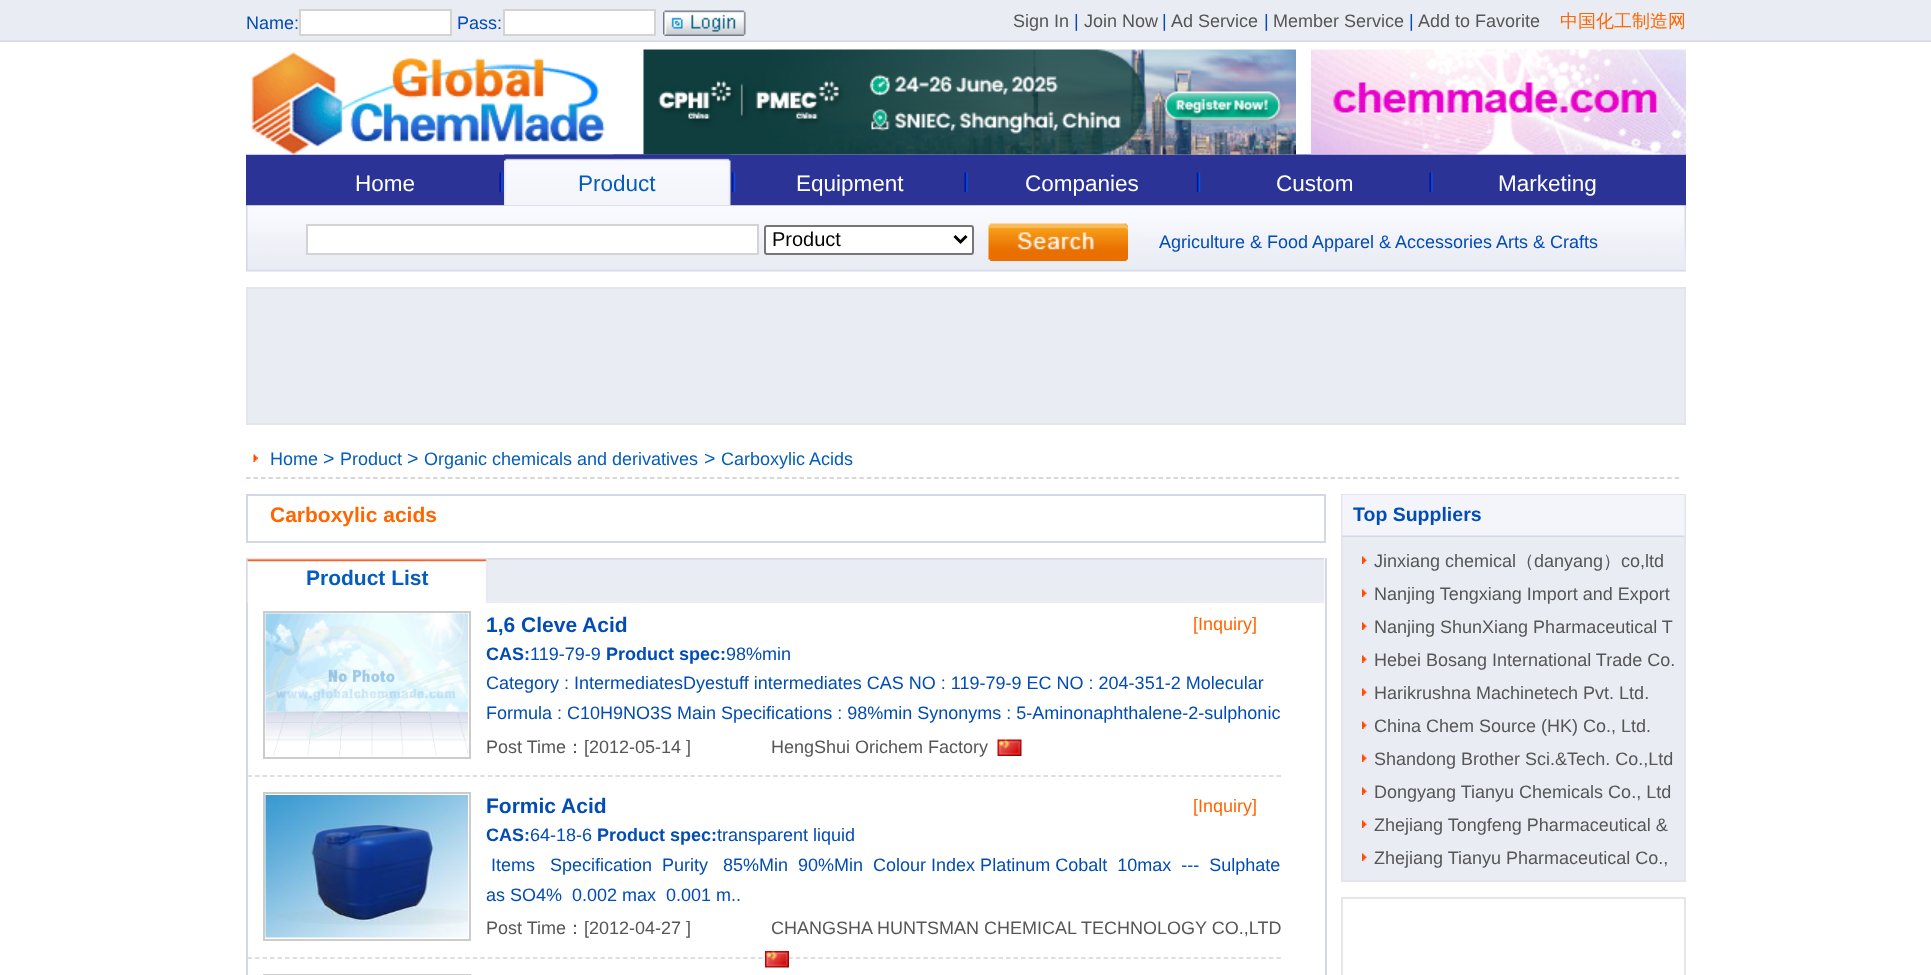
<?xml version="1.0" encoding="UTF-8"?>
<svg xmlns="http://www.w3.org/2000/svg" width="1931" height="975">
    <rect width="100%" height="100%" fill="#FFFFFF"/>
    <image x="0" y="0" width="1931" height="42" href="img_01.png"/>
    <text x="246" y="29" font-family="Liberation Sans" font-size="18" fill="#024CB5">Name:</text>
    <rect x="300" y="10" width="151" height="25" fill="#FFFFFF" stroke="#D3D3D3" stroke-width="2"/>
    <text x="457" y="29" font-family="Liberation Sans" font-size="18" fill="#024CB5">Pass:</text>
    <rect x="504" y="10" width="151" height="25" fill="#FFFFFF" stroke="#D3D3D3" stroke-width="2"/>
    <rect x="663" y="11" width="83" height="25" fill="#EFEFEF"/>
    <image x="663" y="10" width="83" height="26" href="img_02.png"/>
    <text x="1013" y="27" font-family="Liberation Sans" font-size="18" fill="#565656">Sign In</text>
    <text x="1074" y="27" font-family="Liberation Sans" font-size="18" fill="#024CB5">|</text>
    <text x="1084" y="27" font-family="Liberation Sans" font-size="18" fill="#565656">Join Now</text>
    <text x="1162" y="27" font-family="Liberation Sans" font-size="18" fill="#024CB5">|</text>
    <text x="1171" y="27" font-family="Liberation Sans" font-size="18" fill="#565656">Ad Service</text>
    <text x="1264" y="27" font-family="Liberation Sans" font-size="18" fill="#024CB5">|</text>
    <text x="1273" y="27" font-family="Liberation Sans" font-size="18" fill="#565656">Member Service</text>
    <text x="1409" y="27" font-family="Liberation Sans" font-size="18" fill="#024CB5">|</text>
    <text x="1418" y="27" font-family="Liberation Sans" font-size="18" fill="#565656">Add to Favorite</text>
    <text x="1560" y="27" font-family="WenQuanYi Zen Hei" font-size="18" font-weight="500" fill="#FF6600">中国化工制造网</text>
    <image x="246" y="154" width="1440" height="52" href="img_06.png"/>
    <image x="246" y="52" width="368" height="103" href="img_03.png"/>
    <image x="643" y="49" width="653" height="106" href="img_04.png"/>
    <image x="1311" y="49" width="375" height="106" href="img_05.png"/>
    <text x="355" y="191" font-family="Liberation Sans" font-size="22.5" fill="#FFFFFF">Home</text>
    <image x="246" y="205" width="1440" height="67" href="img_08.png"/>
    <image x="504" y="154" width="227" height="52" href="img_07.png"/>
    <text x="578" y="191" font-family="Liberation Sans" font-size="22.5" fill="#045CBE">Product</text>
    <text x="796" y="191" font-family="Liberation Sans" font-size="22.5" fill="#FFFFFF">Equipment</text>
    <text x="1025" y="191" font-family="Liberation Sans" font-size="22.5" fill="#FFFFFF">Companies</text>
    <text x="1276" y="191" font-family="Liberation Sans" font-size="22.5" fill="#FFFFFF">Custom</text>
    <text x="1498" y="191" font-family="Liberation Sans" font-size="22.5" fill="#FFFFFF">Marketing</text>
    <rect x="307" y="225" width="451" height="29" fill="#FFFFFF" stroke="#D3D3D3" stroke-width="2"/>
    <rect x="765" y="226" width="208" height="28" rx="2" fill="#FFFFFF" stroke="#767676" stroke-width="2"/>
    <path d="M 954.5 236 L 960.5 242 L 966.5 236" fill="none" stroke="#000000" stroke-width="3"/>
    <text x="772" y="246" font-family="Liberation Sans" font-size="20" fill="#000000">Product</text>
    <image x="988" y="223" width="140" height="38" href="img_09.png"/>
    <text x="1159" y="248" font-family="Liberation Sans" font-size="18" fill="#024CB5">Agriculture &amp; Food</text>
    <text x="1312" y="248" font-family="Liberation Sans" font-size="18" fill="#024CB5">Apparel &amp; Accessories</text>
    <text x="1496" y="248" font-family="Liberation Sans" font-size="18" fill="#024CB5">Arts &amp; Crafts</text>
    <rect x="247" y="288" width="1438" height="136" fill="#EAECF4" stroke="#E5E6EB" stroke-width="2"/>
    <image x="253" y="454" width="5" height="8" href="img_10.png"/>
    <path d="M 246 478 H 1680" fill="none" stroke="#CCCCCC" stroke-width="1.5" stroke-dasharray="4.5 2.98"/>
    <text x="270" y="465" font-family="Liberation Sans" font-size="18" fill="#045CBE">Home</text>
    <text x="323" y="465" font-family="Liberation Sans" font-size="19.5" fill="#045CBE">&gt;</text>
    <text x="340" y="465" font-family="Liberation Sans" font-size="18" fill="#045CBE">Product</text>
    <text x="407" y="465" font-family="Liberation Sans" font-size="19.5" fill="#045CBE">&gt;</text>
    <text x="424" y="465" font-family="Liberation Sans" font-size="18" fill="#045CBE">Organic chemicals and derivatives</text>
    <text x="704" y="465" font-family="Liberation Sans" font-size="19.5" fill="#045CBE">&gt;</text>
    <text x="721" y="465" font-family="Liberation Sans" font-size="18" fill="#045CBE">Carboxylic Acids</text>
    <rect x="247" y="495" width="1078" height="47" fill="none" stroke="#D4D8E6" stroke-width="2"/>
    <text x="270" y="522" font-family="Liberation Sans" font-size="21" font-weight="700" fill="#FF6600">Carboxylic acids</text>
    <rect x="1325" y="558" width="2" height="417" fill="#D4D8E6"/>
    <rect x="246" y="558" width="2" height="417" fill="#D4D8E6"/>
    <image x="247" y="558" width="1078" height="45" href="img_11.png"/>
    <image x="247" y="558" width="241" height="45" href="img_12.png"/>
    <text x="306" y="585" font-family="Liberation Sans" font-size="21" font-weight="700" fill="#045CBE">Product List</text>
    <path d="M 247.5 776 H 1282.5" fill="none" stroke="#D5D5D5" stroke-width="1.5" stroke-dasharray="4.5 3.01"/>
    <rect x="264" y="612" width="206" height="146" fill="none" stroke="#CCCCCC" stroke-width="2"/>
    <image x="265" y="613" width="203" height="143" href="img_13.png"/>
    <text x="486" y="632" font-family="Liberation Sans" font-size="21" font-weight="700" fill="#024CB5">1,6 Cleve Acid</text>
    <text x="1193" y="630" font-family="Liberation Sans" font-size="18" fill="#FF6600">[Inquiry]</text>
    <text x="486" y="660" font-family="Liberation Sans" font-size="18" font-weight="700" fill="#024CB5">CAS:</text>
    <text x="530" y="660" font-family="Liberation Sans" font-size="18" fill="#024CB5">119-79-9</text>
    <text x="606" y="660" font-family="Liberation Sans" font-size="18" font-weight="700" fill="#024CB5">Product spec:</text>
    <text x="726" y="660" font-family="Liberation Sans" font-size="18" fill="#024CB5">98%min</text>
    <text font-family="Liberation Sans" font-size="18" fill="#024CB5">
        <tspan x="486" y="689">Category : IntermediatesDyestuff intermediates CAS NO : 119-79-9 EC NO : 204-351-2 Molecular</tspan>
        <tspan x="486" y="719">Formula : C10H9NO3S Main Specifications : 98%min Synonyms : 5-Aminonaphthalene-2-sulphonic</tspan>
    </text>
    <text x="486" y="753" font-family="Liberation Sans" font-size="18" fill="#565656">Post Time</text>
    <text x="566" y="753" font-family="WenQuanYi Zen Hei" font-size="18" font-weight="500" fill="#565656">：</text>
    <text x="584" y="753" font-family="Liberation Sans" font-size="18" fill="#565656">[2012-05-14 ]</text>
    <text x="771" y="753" font-family="Liberation Sans" font-size="18" fill="#565656">HengShui Orichem Factory</text>
    <image x="997" y="739" width="25" height="17" href="img_14.png"/>
    <path d="M 247.5 958 H 1282.5" fill="none" stroke="#D5D5D5" stroke-width="1.5" stroke-dasharray="4.5 3.01"/>
    <rect x="264" y="793" width="206" height="147" fill="none" stroke="#CCCCCC" stroke-width="2"/>
    <image x="265" y="795" width="203" height="143" href="img_15.png"/>
    <text x="486" y="813" font-family="Liberation Sans" font-size="21" font-weight="700" fill="#024CB5">Formic Acid</text>
    <text x="1193" y="812" font-family="Liberation Sans" font-size="18" fill="#FF6600">[Inquiry]</text>
    <text x="486" y="841" font-family="Liberation Sans" font-size="18" font-weight="700" fill="#024CB5">CAS:</text>
    <text x="530" y="841" font-family="Liberation Sans" font-size="18" fill="#024CB5">64-18-6</text>
    <text x="597" y="841" font-family="Liberation Sans" font-size="18" font-weight="700" fill="#024CB5">Product spec:</text>
    <text x="717" y="841" font-family="Liberation Sans" font-size="18" fill="#024CB5">transparent liquid</text>
    <text x="491" y="871" font-family="Liberation Sans" font-size="18" fill="#024CB5">Items</text>
    <text x="550" y="871" font-family="Liberation Sans" font-size="18" fill="#024CB5" xml:space="preserve">Specification  Purity</text>
    <text x="723" y="871" font-family="Liberation Sans" font-size="18" fill="#024CB5" xml:space="preserve">85%Min  90%Min  Colour Index Platinum Cobalt  10max  ---  Sulphate</text>
    <text x="486" y="901" font-family="Liberation Sans" font-size="18" fill="#024CB5">as SO4%</text>
    <text x="572" y="901" font-family="Liberation Sans" font-size="18" fill="#024CB5" xml:space="preserve">0.002 max  0.001 m..</text>
    <text x="486" y="934" font-family="Liberation Sans" font-size="18" fill="#565656">Post Time</text>
    <text x="566" y="934" font-family="WenQuanYi Zen Hei" font-size="18" font-weight="500" fill="#565656">：</text>
    <text x="584" y="934" font-family="Liberation Sans" font-size="18" fill="#565656">[2012-04-27 ]</text>
    <text x="771" y="934" font-family="Liberation Sans" font-size="18" fill="#565656">CHANGSHA HUNTSMAN CHEMICAL TECHNOLOGY CO.,LTD</text>
    <image x="765" y="951" width="24" height="17" href="img_16.png"/>
    <rect x="264" y="975" width="206" height="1" fill="none" stroke="#CCCCCC" stroke-width="2"/>
    <rect x="1343" y="537" width="341" height="343" fill="#EAECF4"/>
    <rect x="1342" y="495" width="343" height="386" fill="none" stroke="#E5E6EB" stroke-width="2"/>
    <image x="1342" y="495" width="343" height="42" href="img_17.png"/>
    <text x="1353" y="521" font-family="Liberation Sans" font-size="19.5" font-weight="700" fill="#024CB5">Top Suppliers</text>
    <image x="1362" y="556" width="5" height="8" href="img_18.png"/>
    <text x="1374" y="567" font-family="Liberation Sans" font-size="18" fill="#565656">Jinxiang chemical</text>
    <text x="1516" y="567" font-family="WenQuanYi Zen Hei" font-size="18" font-weight="500" fill="#565656">（</text>
    <text x="1534" y="567" font-family="Liberation Sans" font-size="18" fill="#565656">danyang</text>
    <text x="1603" y="567" font-family="WenQuanYi Zen Hei" font-size="18" font-weight="500" fill="#565656">）</text>
    <text x="1621" y="567" font-family="Liberation Sans" font-size="18" fill="#565656">co,ltd</text>
    <image x="1362" y="589" width="5" height="8" href="img_18.png"/>
    <text x="1374" y="600" font-family="Liberation Sans" font-size="18" fill="#565656">Nanjing Tengxiang Import and Export</text>
    <image x="1362" y="622" width="5" height="8" href="img_18.png"/>
    <text x="1374" y="633" font-family="Liberation Sans" font-size="18" fill="#565656">Nanjing ShunXiang Pharmaceutical T</text>
    <image x="1362" y="655" width="5" height="8" href="img_18.png"/>
    <text x="1374" y="666" font-family="Liberation Sans" font-size="18" fill="#565656">Hebei Bosang International Trade Co.</text>
    <image x="1362" y="688" width="5" height="8" href="img_18.png"/>
    <text x="1374" y="699" font-family="Liberation Sans" font-size="18" fill="#565656">Harikrushna Machinetech Pvt. Ltd.</text>
    <image x="1362" y="721" width="5" height="8" href="img_18.png"/>
    <text x="1374" y="732" font-family="Liberation Sans" font-size="18" fill="#565656">China Chem Source (HK) Co., Ltd.</text>
    <image x="1362" y="754" width="5" height="8" href="img_18.png"/>
    <text x="1374" y="765" font-family="Liberation Sans" font-size="18" fill="#565656">Shandong Brother Sci.&amp;Tech. Co.,Ltd</text>
    <image x="1362" y="787" width="5" height="8" href="img_18.png"/>
    <text x="1374" y="798" font-family="Liberation Sans" font-size="18" fill="#565656">Dongyang Tianyu Chemicals Co., Ltd</text>
    <image x="1362" y="820" width="5" height="8" href="img_18.png"/>
    <text x="1374" y="831" font-family="Liberation Sans" font-size="18" fill="#565656">Zhejiang Tongfeng Pharmaceutical &amp;</text>
    <image x="1362" y="853" width="5" height="8" href="img_18.png"/>
    <text x="1374" y="864" font-family="Liberation Sans" font-size="18" fill="#565656">Zhejiang Tianyu Pharmaceutical Co.,</text>
    <rect x="1342" y="898" width="343" height="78" fill="none" stroke="#E5E6EB" stroke-width="2"/>
</svg>
